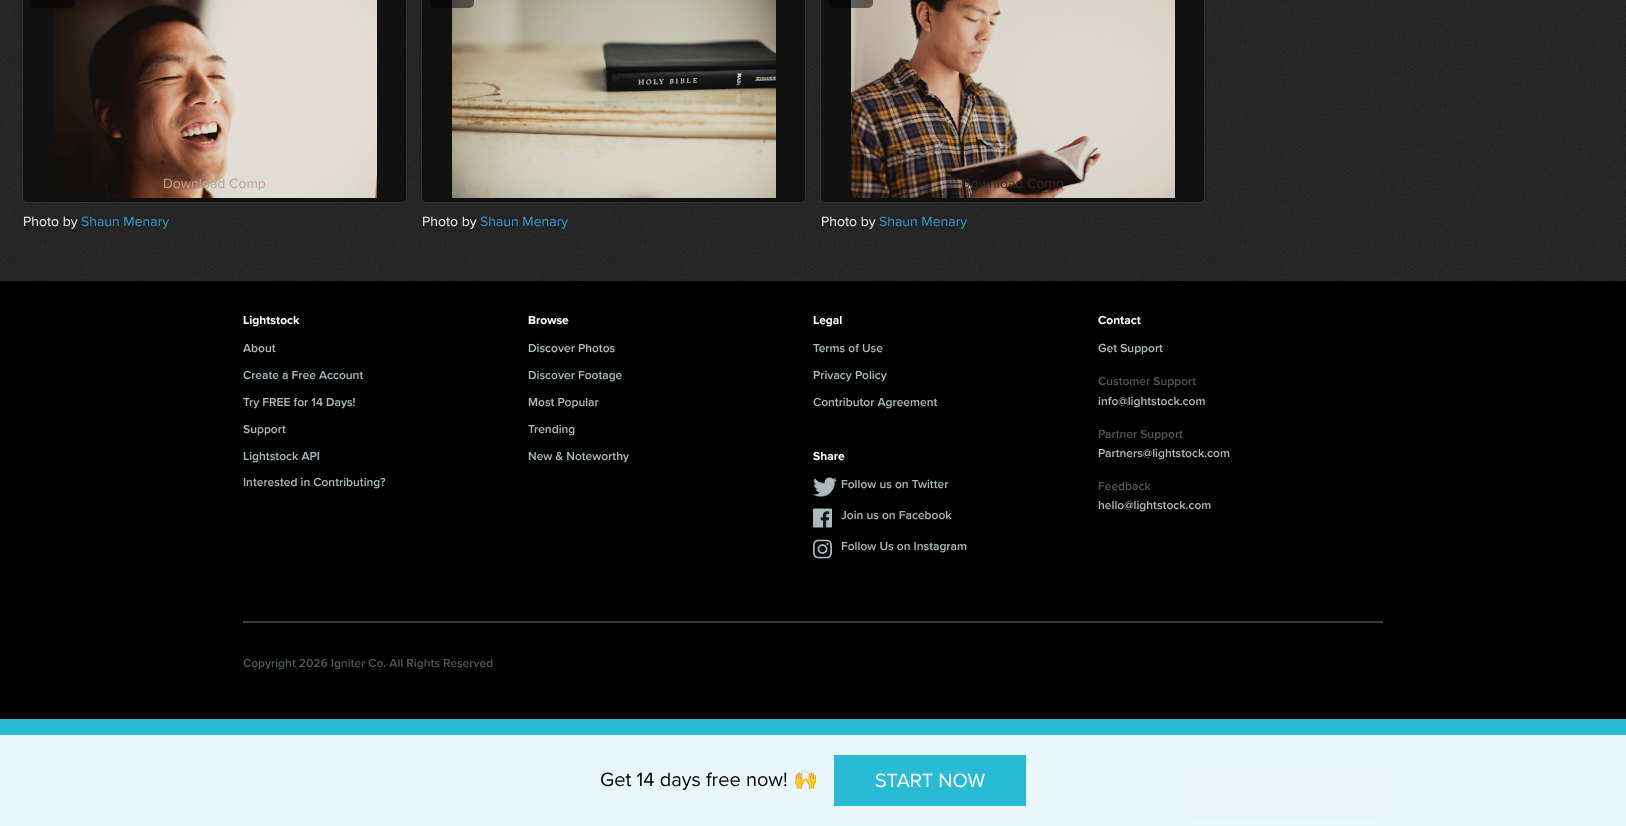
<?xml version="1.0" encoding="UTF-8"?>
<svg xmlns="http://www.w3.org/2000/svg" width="1626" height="826">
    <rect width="100%" height="100%" fill="#FFFFFF"/>
    <image x="0" y="0" width="1626" height="281" href="img_01.png"/>
    <rect x="22.5" y="-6.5" width="384" height="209" rx="5.5" fill="none" stroke="#333333"/>
    <rect x="23" y="-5" width="383" height="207" rx="5" fill="#111111"/>
    <image x="53" y="0" width="324" height="198" href="img_02.png"/>
    <rect x="25" y="-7" width="379" height="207" rx="3" fill="none" stroke="#111111" stroke-width="4"/>
    <rect x="31" y="-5" width="44" height="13" rx="5" fill="#000000" fill-opacity="0.5"/>
    <text x="163" y="188" font-family="Proxima Nova" font-size="14" fill="#BAA291">Download Comp</text>
    <text x="23" y="226" font-family="Proxima Nova" font-size="14" fill="#EEEEEE">Photo by</text>
    <text x="81" y="226" font-family="Proxima Nova" font-size="14" fill="#3898CD">Shaun Menary</text>
    <rect x="421.5" y="-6.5" width="384" height="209" rx="5.5" fill="none" stroke="#333333"/>
    <rect x="422" y="-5" width="383" height="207" rx="5" fill="#111111"/>
    <image x="452" y="0" width="324" height="198" href="img_03.png"/>
    <rect x="424" y="-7" width="379" height="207" rx="3" fill="none" stroke="#111111" stroke-width="4"/>
    <rect x="430" y="-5" width="44" height="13" rx="5" fill="#000000" fill-opacity="0.5"/>
    <text x="422" y="226" font-family="Proxima Nova" font-size="14" fill="#EEEEEE">Photo by</text>
    <text x="480" y="226" font-family="Proxima Nova" font-size="14" fill="#3898CD">Shaun Menary</text>
    <rect x="820.5" y="-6.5" width="384" height="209" rx="5.5" fill="none" stroke="#333333"/>
    <rect x="821" y="-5" width="383" height="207" rx="5" fill="#111111"/>
    <image x="851" y="0" width="324" height="198" href="img_04.png"/>
    <rect x="823" y="-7" width="379" height="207" rx="3" fill="none" stroke="#111111" stroke-width="4"/>
    <rect x="829" y="-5" width="44" height="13" rx="5" fill="#000000" fill-opacity="0.5"/>
    <text x="961" y="188" font-family="Proxima Nova" font-size="14" fill="#392720">Download Comp</text>
    <text x="821" y="226" font-family="Proxima Nova" font-size="14" fill="#EEEEEE">Photo by</text>
    <text x="879" y="226" font-family="Proxima Nova" font-size="14" fill="#3898CD">Shaun Menary</text>
    <rect x="0" y="281" width="1626" height="438" fill="#000000"/>
    <text x="243" y="324" font-family="Proxima Nova" font-size="12" font-weight="700" fill="#FFFFFF">Lightstock</text>
    <text x="243" y="352" font-family="Proxima Nova" font-size="12" font-weight="600" fill="#ACBABF">About</text>
    <text x="243" y="379" font-family="Proxima Nova" font-size="12" font-weight="600" fill="#ACBABF">Create a Free Account</text>
    <text x="243" y="406" font-family="Proxima Nova" font-size="12" font-weight="600" fill="#ACBABF">Try FREE for 14 Days!</text>
    <text x="243" y="433" font-family="Proxima Nova" font-size="12" font-weight="600" fill="#ACBABF">Support</text>
    <text x="243" y="460" font-family="Proxima Nova" font-size="12" font-weight="600" fill="#ACBABF">Lightstock API</text>
    <text x="243" y="486" font-family="Proxima Nova" font-size="12" font-weight="600" fill="#ACBABF">Interested in Contributing?</text>
    <text x="528" y="324" font-family="Proxima Nova" font-size="12" font-weight="700" fill="#FFFFFF">Browse</text>
    <text x="528" y="352" font-family="Proxima Nova" font-size="12" font-weight="600" fill="#ACBABF">Discover Photos</text>
    <text x="528" y="379" font-family="Proxima Nova" font-size="12" font-weight="600" fill="#ACBABF">Discover Footage</text>
    <text x="528" y="406" font-family="Proxima Nova" font-size="12" font-weight="600" fill="#ACBABF">Most Popular</text>
    <text x="528" y="433" font-family="Proxima Nova" font-size="12" font-weight="600" fill="#ACBABF">Trending</text>
    <text x="528" y="460" font-family="Proxima Nova" font-size="12" font-weight="600" fill="#ACBABF">New &amp; Noteworthy</text>
    <text x="813" y="324" font-family="Proxima Nova" font-size="12" font-weight="700" fill="#FFFFFF">Legal</text>
    <text x="813" y="352" font-family="Proxima Nova" font-size="12" font-weight="600" fill="#ACBABF">Terms of Use</text>
    <text x="813" y="379" font-family="Proxima Nova" font-size="12" font-weight="600" fill="#ACBABF">Privacy Policy</text>
    <text x="813" y="406" font-family="Proxima Nova" font-size="12" font-weight="600" fill="#ACBABF">Contributor Agreement</text>
    <text x="813" y="460" font-family="Proxima Nova" font-size="12" font-weight="700" fill="#FFFFFF">Share</text>
    <image x="813" y="477" width="24" height="20" href="img_05.png"/>
    <text x="841" y="488" font-family="Proxima Nova" font-size="12" font-weight="600" fill="#ACBABF">Follow us on Twitter</text>
    <image x="813" y="508" width="19" height="20" href="img_06.png"/>
    <text x="841" y="519" font-family="Proxima Nova" font-size="12" font-weight="600" fill="#ACBABF">Join us on Facebook</text>
    <image x="813" y="539" width="19" height="20" href="img_07.png"/>
    <text x="841" y="550" font-family="Proxima Nova" font-size="12" font-weight="600" fill="#ACBABF">Follow Us on Instagram</text>
    <text x="1098" y="324" font-family="Proxima Nova" font-size="12" font-weight="700" fill="#FFFFFF">Contact</text>
    <text x="1098" y="352" font-family="Proxima Nova" font-size="12" font-weight="600" fill="#ACBABF">Get Support</text>
    <text x="1098" y="385" font-family="Proxima Nova" font-size="12" font-weight="600" fill="#505759">Customer Support</text>
    <text x="1098" y="405" font-family="Proxima Nova" font-size="12" font-weight="600" fill="#ACBABF">info@lightstock.com</text>
    <text x="1098" y="438" font-family="Proxima Nova" font-size="12" font-weight="600" fill="#505759">Partner Support</text>
    <text x="1098" y="457" font-family="Proxima Nova" font-size="12" font-weight="600" fill="#ACBABF">Partners@lightstock.com</text>
    <text x="1098" y="490" font-family="Proxima Nova" font-size="12" font-weight="600" fill="#505759">Feedback</text>
    <text x="1098" y="509" font-family="Proxima Nova" font-size="12" font-weight="600" fill="#ACBABF">hello@lightstock.com</text>
    <rect x="243" y="621" width="1140" height="2" fill="#393E40"/>
    <text x="243" y="667" font-family="Proxima Nova" font-size="12" font-weight="600" fill="#505759">Copyright 2026 Igniter Co. All Rights Reserved</text>
    <rect x="0" y="719" width="1626" height="107" fill="#29BAD5"/>
    <rect x="1185" y="767" width="198" height="52" rx="5" fill="#2195AA"/>
    <rect x="0" y="735" width="1626" height="91" fill="#FFFFFF" fill-opacity="0.9"/>
    <text x="600" y="786" font-family="Proxima Nova" font-size="20" fill="#000000">Get 14 days free now!</text>
    <text x="793" y="786" font-family="Noto Color Emoji" font-size="20" fill="#000000">🙌</text>
    <rect x="834" y="755" width="192" height="51" fill="#29BAD5"/>
    <text x="875" y="787" font-family="Proxima Nova" font-size="20" fill="#FFFFFF">START NOW</text>
</svg>
